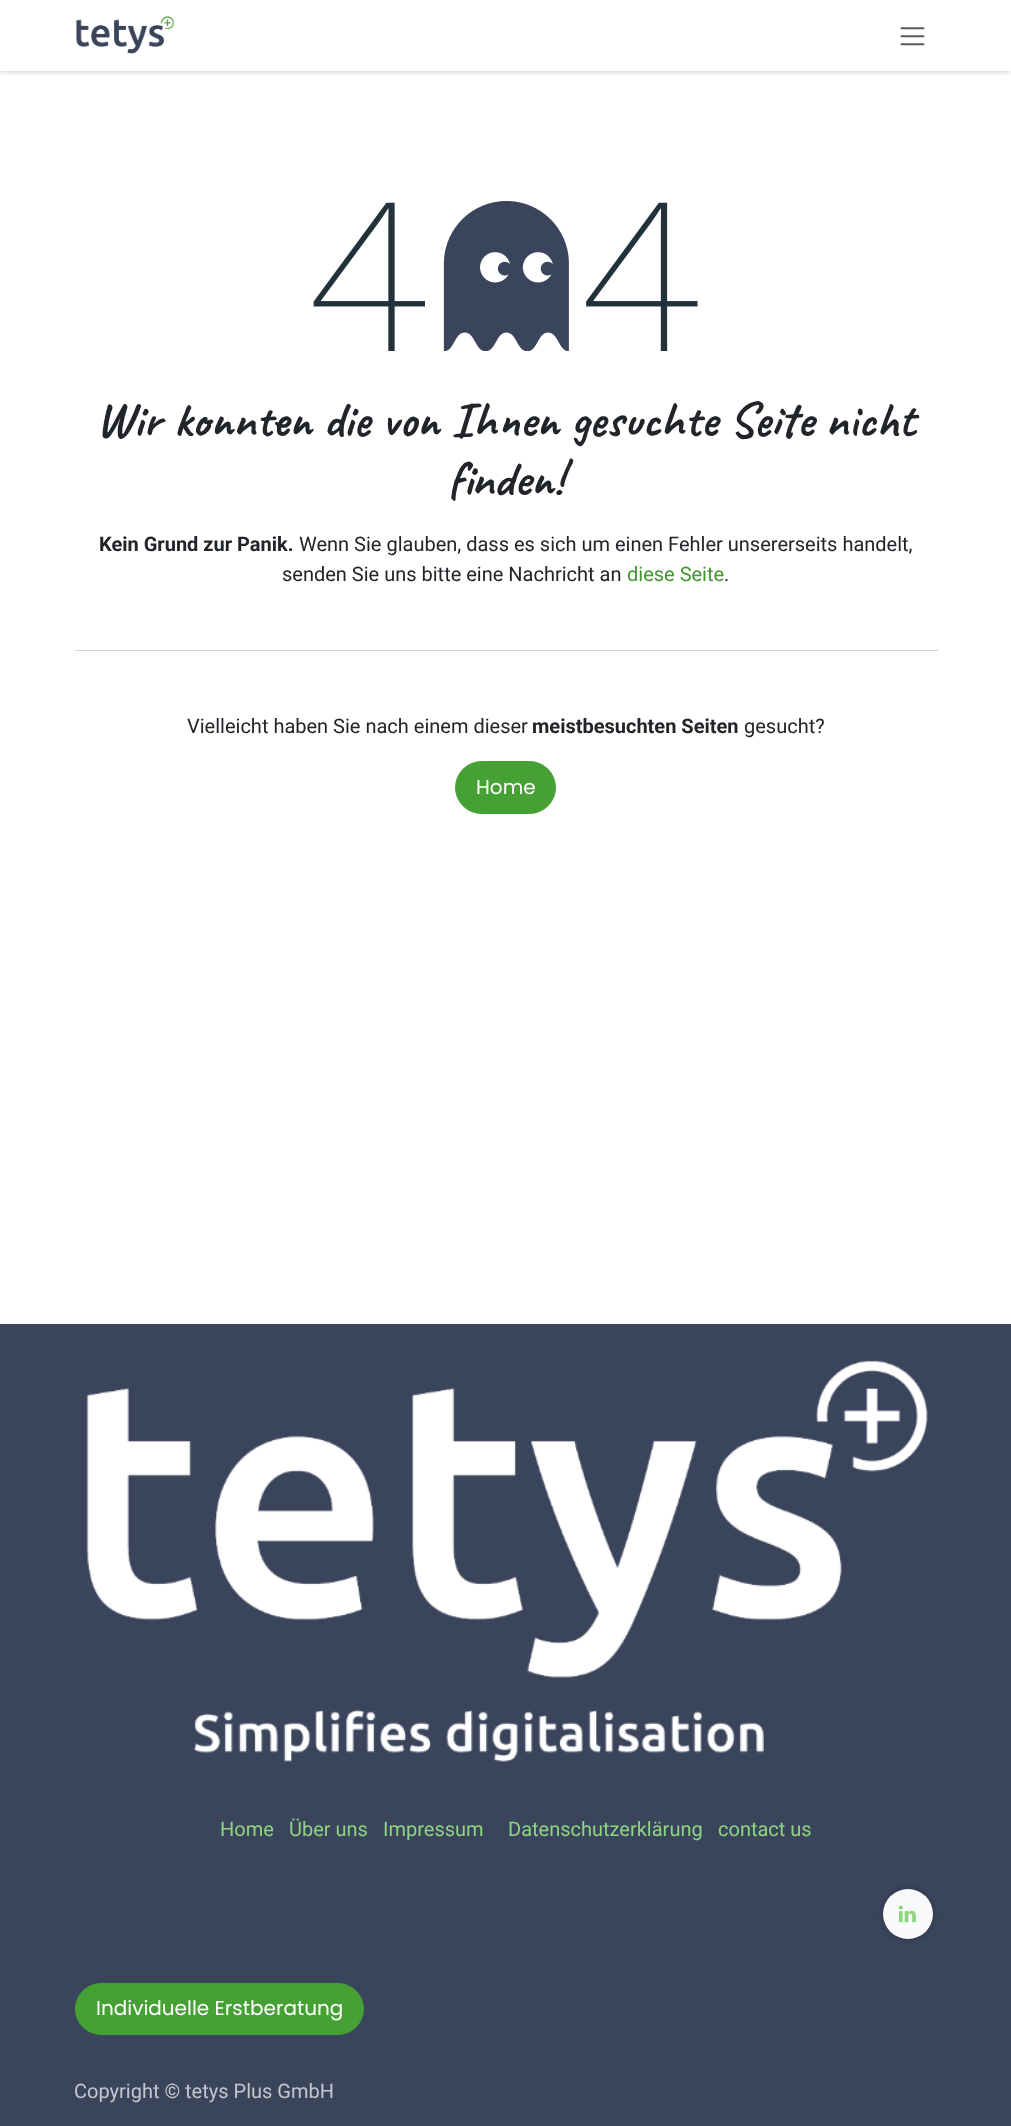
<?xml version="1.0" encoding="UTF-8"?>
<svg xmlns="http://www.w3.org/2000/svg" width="1011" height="2126">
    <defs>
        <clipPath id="clip1"><rect x="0" y="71" width="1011" height="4"/></clipPath>
        <filter id="blur1" x="-50%" y="-200%" width="200%" height="500%"><feGaussianBlur stdDeviation="3"/></filter>
    </defs>
    <rect width="100%" height="100%" fill="#FFFFFF"/>
    <g clip-path="url(#clip1)">
        <rect x="0" y="0" width="1011" height="71" fill="#000000" fill-opacity="0.25" filter="url(#blur1)"/>
    </g>
    <image x="75" y="16" width="100" height="38" href="img_01.png"/>
    <image x="900" y="27" width="25" height="19" href="img_02.png"/>
    <image x="313" y="201" width="385" height="150" href="img_03.png"/>
    <text x="96" y="436" font-family="Caveat" font-size="49.75" font-weight="700" fill="#212529">Wir konnten die von Ihnen gesuchte Seite nicht</text>
    <text x="448" y="495" font-family="Caveat" font-size="49.75" font-weight="700" fill="#212529">finden!</text>
    <text x="99" y="551" font-family="Roboto" font-size="20" font-weight="700" fill="#212529">Kein Grund zur Panik.</text>
    <text x="299" y="551" font-family="Roboto" font-size="20" fill="#212529">Wenn Sie glauben, dass es sich um einen Fehler unsererseits handelt,</text>
    <text x="282" y="581" font-family="Roboto" font-size="20" fill="#212529">senden Sie uns bitte eine Nachricht an</text>
    <text x="627" y="581" font-family="Roboto" font-size="20" fill="#419531">diese Seite</text>
    <text x="724" y="581" font-family="Roboto" font-size="20" fill="#212529">.</text>
    <rect x="75" y="650" width="863" height="1" fill="#CED4DA"/>
    <text x="187" y="733" font-family="Roboto" font-size="20" fill="#212529">Vielleicht haben Sie nach einem dieser</text>
    <text x="532" y="733" font-family="Roboto" font-size="20" font-weight="700" fill="#212529">meistbesuchten Seiten</text>
    <text x="744" y="733" font-family="Roboto" font-size="20" fill="#212529">gesucht?</text>
    <rect x="455.5" y="761.5" width="100" height="52" rx="26" fill="#46A135" stroke="#46A135"/>
    <text x="476" y="794" font-family="Poppins" font-size="20" fill="#FFFFFF">Home</text>
    <rect x="0" y="1324" width="1011" height="802" fill="#3A445B"/>
    <image x="86" y="1360" width="842" height="402" href="img_04.png"/>
    <text x="220" y="1836" font-family="Roboto" font-size="20" fill="#8ED580">Home</text>
    <text x="289" y="1836" font-family="Roboto" font-size="20" fill="#8ED580">Über uns</text>
    <text x="383" y="1836" font-family="Roboto" font-size="20" fill="#8ED580">Impressum</text>
    <text x="508" y="1836" font-family="Roboto" font-size="20" fill="#8ED580">Datenschutzerklärung</text>
    <text x="718" y="1836" font-family="Roboto" font-size="20" fill="#8ED580">contact us</text>
    <rect x="883" y="1889" width="50" height="50" rx="25" fill="#000000" fill-opacity="0.25" filter="url(#blur1)"/>
    <circle cx="908" cy="1914" r="25" fill="#F8F9FA"/>
    <image x="898" y="1905" width="18" height="18" href="img_05.png"/>
    <rect x="75.5" y="1983.5" width="288" height="51" rx="25.5" fill="#46A135" stroke="#46A135"/>
    <text x="96" y="2015" font-family="Poppins" font-size="20" fill="#FFFFFF">Individuelle Erstberatung</text>
    <text x="74" y="2098" font-family="Roboto" font-size="20" fill="#C4C7CE">Copyright © tetys Plus GmbH</text>
</svg>
